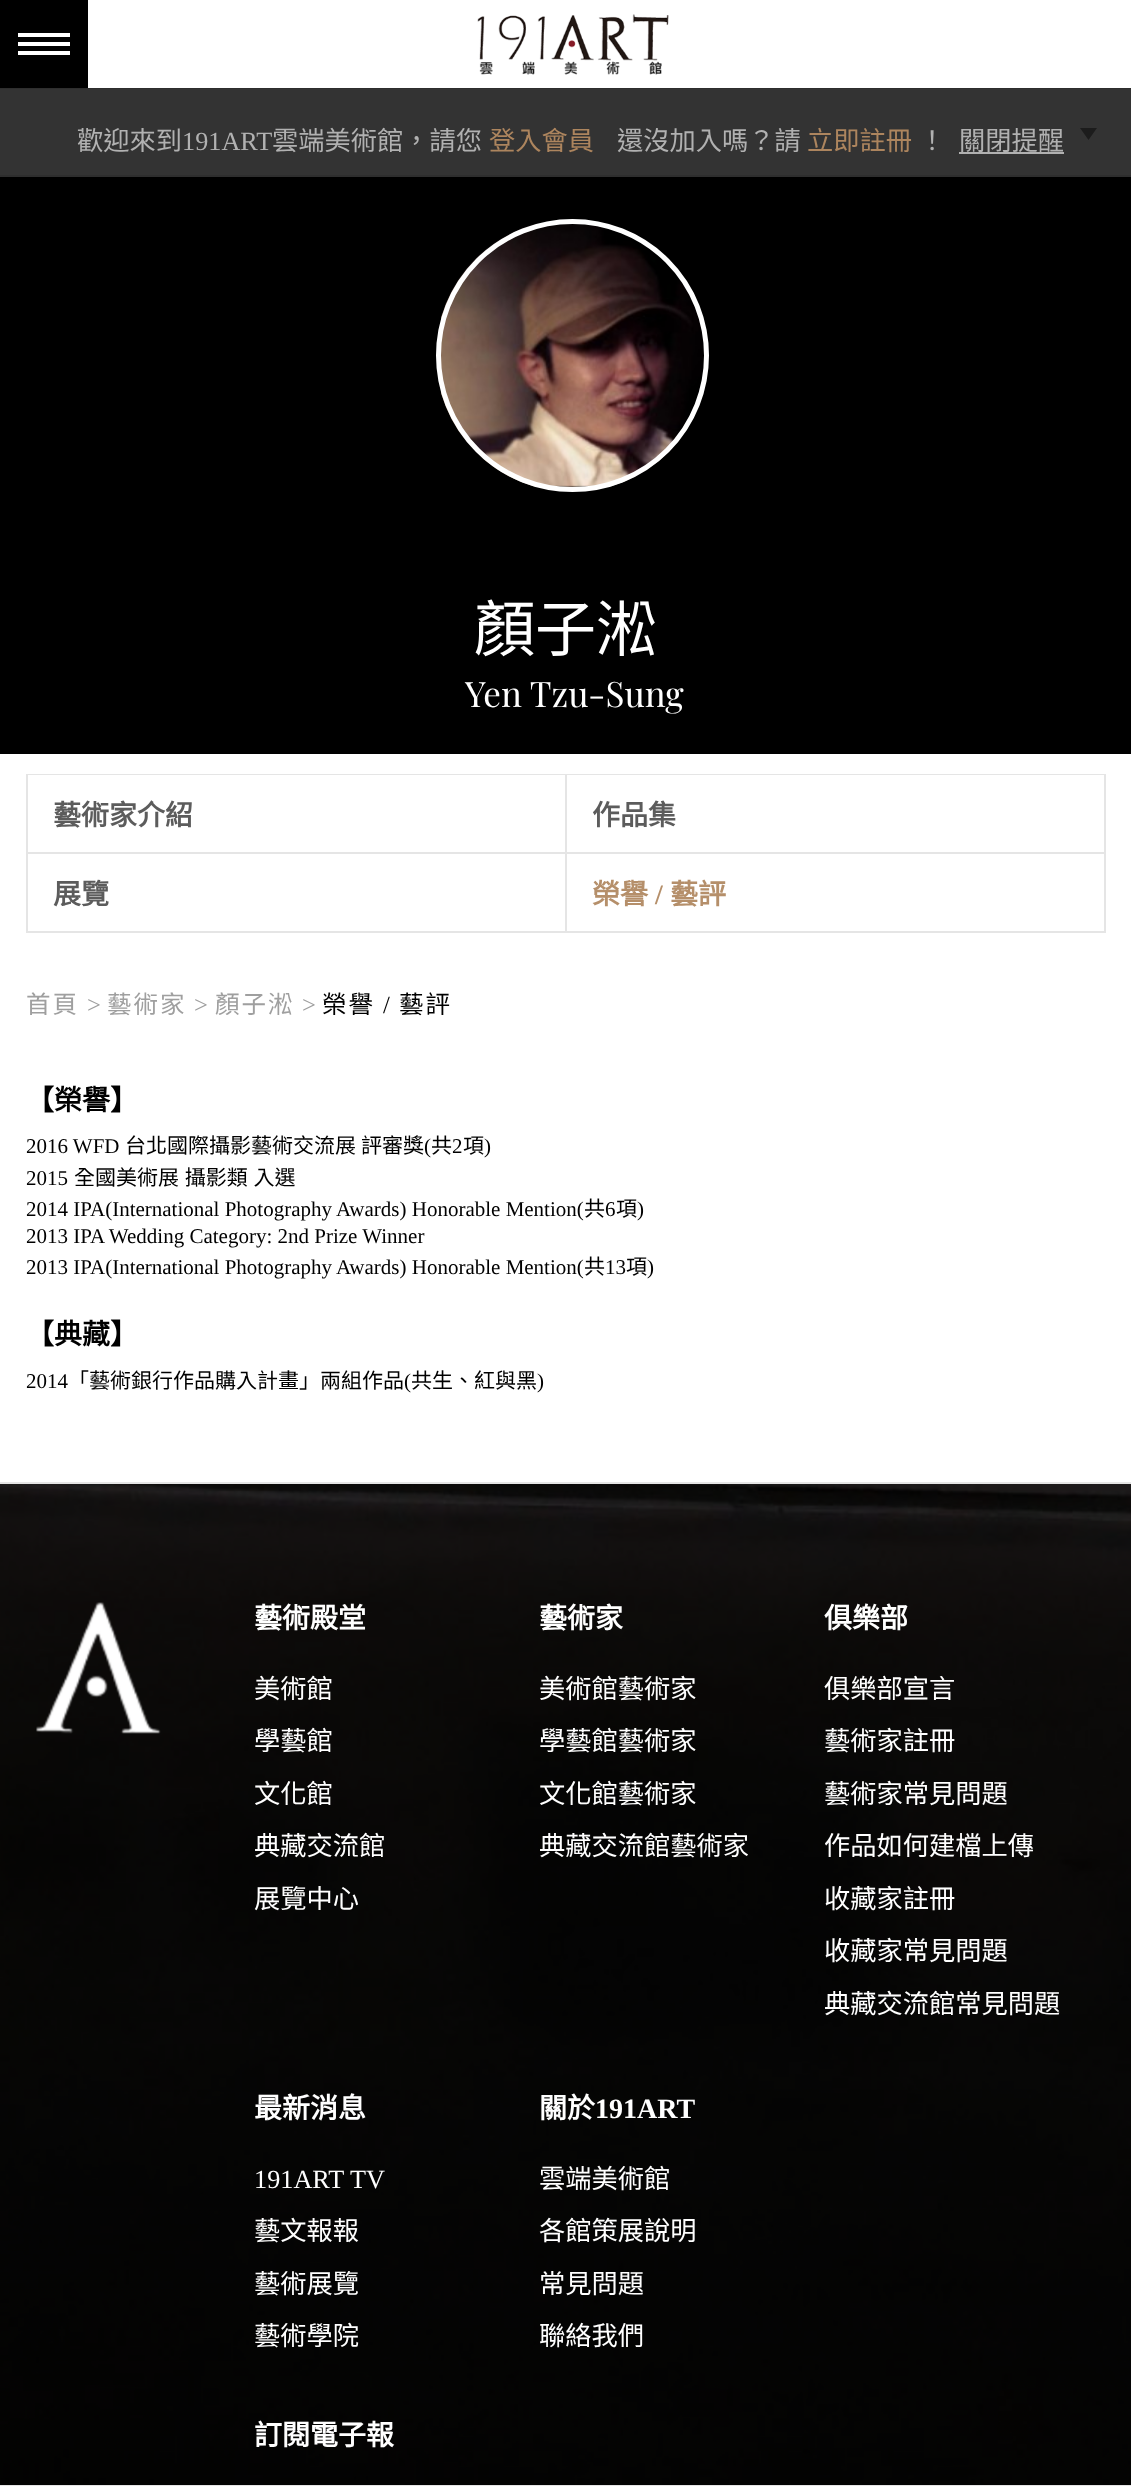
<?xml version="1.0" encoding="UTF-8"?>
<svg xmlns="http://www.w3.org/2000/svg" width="1131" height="2486">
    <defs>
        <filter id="blur1" x="-50%" y="-200%" width="200%" height="500%"><feGaussianBlur stdDeviation="9"/></filter>
    </defs>
    <rect width="100%" height="100%" fill="#FFFFFF"/>
    <rect x="0" y="177" width="1131" height="577" fill="#000000"/>
    <rect x="0" y="0" width="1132" height="177" fill="#000000" fill-opacity="0.1" filter="url(#blur1)"/>
    <rect x="0" y="0" width="88" height="88" fill="#000000"/>
    <rect x="18" y="33" width="52" height="4" fill="#FFFFFF"/>
    <rect x="18" y="42" width="52" height="4" fill="#FFFFFF"/>
    <rect x="18" y="51" width="52" height="4" fill="#FFFFFF"/>
    <rect x="88" y="0" width="1043" height="88" fill="#FFFFFF"/>
    <image x="477" y="14" width="192" height="61" href="img_01.png"/>
    <rect x="0" y="175" width="1131" height="2" fill="#E5E5E5"/>
    <rect x="0" y="88" width="1131" height="1" fill="#E5E5E5"/>
    <rect x="0" y="89" width="1131" height="86" fill="#FFFFFF"/>
    <path d="M 1080 128 H 1097 L 1088.5 140 Z" fill="#8B8B8B"/>
    <rect x="0" y="88" width="1131" height="89" fill="#000000" fill-opacity="0.8"/>
    <text x="77" y="150" font-family="Noto Sans CJK TC" font-size="26.25" fill="#B1B1B1">歡迎來到</text>
    <text x="182" y="150" font-family="Liberation Serif" font-size="26.25" fill="#B1B1B1">191ART</text>
    <text x="272" y="150" font-family="Noto Sans CJK TC" font-size="26.25" fill="#B1B1B1">雲端美術館，請您</text>
    <text x="489" y="150" font-family="Noto Sans CJK TC" font-size="26.25" fill="#AD855E">登入會員</text>
    <text x="617" y="150" font-family="Noto Sans CJK TC" font-size="26.25" fill="#B1B1B1">還沒加入嗎？請</text>
    <text x="807" y="150" font-family="Noto Sans CJK TC" font-size="26.25" fill="#AD855E">立即註冊</text>
    <text x="919" y="150" font-family="Noto Sans CJK TC" font-size="26.25" fill="#B1B1B1">！</text>
    <rect x="959" y="152" width="105" height="2" fill="#B1B1B1"/>
    <text x="959" y="150" font-family="Noto Sans CJK TC" font-size="26.25" fill="#B1B1B1">關閉提醒</text>
    <image x="441" y="224" width="262" height="263" href="img_02.png"/>
    <circle cx="572.5" cy="355.5" r="134" fill="none" stroke="#FFFFFF" stroke-width="5"/>
    <text x="474" y="651" font-family="Noto Sans CJK TC" font-size="61" fill="#FFFFFF">顏子淞</text>
    <text x="465" y="707" font-family="Playfair Display" font-size="35" fill="#FFFFFF">Yen Tzu-Sung</text>
    <rect x="26" y="774" width="1080" height="159" fill="#E5E5E5"/>
    <rect x="28" y="775" width="537" height="77" fill="#FFFFFF"/>
    <text x="53" y="825" font-family="Noto Sans CJK TC" font-size="28" font-weight="700" fill="#5C5C5C">藝術家介紹</text>
    <rect x="567" y="775" width="537" height="77" fill="#FFFFFF"/>
    <text x="592" y="825" font-family="Noto Sans CJK TC" font-size="28" font-weight="700" fill="#5C5C5C">作品集</text>
    <rect x="28" y="854" width="537" height="77" fill="#FFFFFF"/>
    <text x="53" y="904" font-family="Noto Sans CJK TC" font-size="28" font-weight="700" fill="#5C5C5C">展覽</text>
    <rect x="567" y="854" width="537" height="77" fill="#FFFFFF"/>
    <text x="592" y="904" font-family="Noto Sans CJK TC" font-size="28" font-weight="700" fill="#B58F6A">榮譽</text>
    <text x="655" y="904" font-family="Liberation Serif" font-size="28" font-weight="700" fill="#B58F6A">/</text>
    <text x="670" y="904" font-family="Noto Sans CJK TC" font-size="28" font-weight="700" fill="#B58F6A">藝評</text>
    <rect x="0" y="1482" width="1131" height="2" fill="#E5E5E5"/>
    <text x="26" y="1013" font-family="Noto Sans CJK TC" font-size="24.5" letter-spacing="2" fill="#9F9F9F">首頁</text>
    <text x="87" y="1013" font-family="Liberation Serif" font-size="24.5" letter-spacing="2" fill="#9F9F9F">&gt;</text>
    <text x="107" y="1013" font-family="Noto Sans CJK TC" font-size="24.5" letter-spacing="2" fill="#9F9F9F">藝術家</text>
    <text x="194" y="1013" font-family="Liberation Serif" font-size="24.5" letter-spacing="2" fill="#9F9F9F">&gt;</text>
    <text x="215" y="1013" font-family="Noto Sans CJK TC" font-size="24.5" letter-spacing="2" fill="#9F9F9F">顏子淞</text>
    <text x="302" y="1013" font-family="Liberation Serif" font-size="24.5" letter-spacing="2" fill="#9F9F9F">&gt;</text>
    <text x="322" y="1013" font-family="Noto Sans CJK TC" font-size="24.5" letter-spacing="2" fill="#000000">榮譽</text>
    <text x="383" y="1013" font-family="Liberation Serif" font-size="24.5" letter-spacing="2" fill="#000000">/</text>
    <text x="399" y="1013" font-family="Noto Sans CJK TC" font-size="24.5" letter-spacing="2" fill="#000000">藝評</text>
    <text x="26" y="1110" font-family="Noto Sans CJK TC" font-size="28" font-weight="700" fill="#000000">【榮譽】</text>
    <text x="26" y="1153" font-family="Liberation Serif" font-size="21" fill="#000000">2016 WFD</text>
    <text x="125" y="1153" font-family="Noto Sans CJK TC" font-size="21" fill="#000000">台北國際攝影藝術交流展</text>
    <text x="361" y="1153" font-family="Noto Sans CJK TC" font-size="21" fill="#000000">評審獎</text>
    <text x="424" y="1153" font-family="Liberation Serif" font-size="21" fill="#000000">(</text>
    <text x="431" y="1153" font-family="Noto Sans CJK TC" font-size="21" fill="#000000">共</text>
    <text x="452" y="1153" font-family="Liberation Serif" font-size="21" fill="#000000">2</text>
    <text x="463" y="1153" font-family="Noto Sans CJK TC" font-size="21" fill="#000000">項</text>
    <text x="484" y="1153" font-family="Liberation Serif" font-size="21" fill="#000000">)</text>
    <text x="26" y="1185" font-family="Liberation Serif" font-size="21" fill="#000000">2015</text>
    <text x="74" y="1185" word-spacing="1" font-family="Noto Sans CJK TC" font-size="21" fill="#000000">全國美術展 攝影類 入選</text>
    <text x="26" y="1216" font-family="Liberation Serif" font-size="21" fill="#000000">2014 IPA(International Photography Awards) Honorable Mention(</text>
    <text x="584" y="1216" font-family="Noto Sans CJK TC" font-size="21" fill="#000000">共</text>
    <text x="605" y="1216" font-family="Liberation Serif" font-size="21" fill="#000000">6</text>
    <text x="616" y="1216" font-family="Noto Sans CJK TC" font-size="21" fill="#000000">項</text>
    <text x="637" y="1216" font-family="Liberation Serif" font-size="21" fill="#000000">)</text>
    <text font-family="Liberation Serif" font-size="21" fill="#000000">
        <tspan x="26" y="1243">2013 IPA Wedding Category: 2nd Prize Winner</tspan>
        <tspan x="26" y="1274">2013 IPA(International Photography Awards) Honorable Mention(</tspan>
    </text>
    <text x="584" y="1274" font-family="Noto Sans CJK TC" font-size="21" fill="#000000">共</text>
    <text x="605" y="1274" font-family="Liberation Serif" font-size="21" fill="#000000">13</text>
    <text x="626" y="1274" font-family="Noto Sans CJK TC" font-size="21" fill="#000000">項</text>
    <text x="647" y="1274" font-family="Liberation Serif" font-size="21" fill="#000000">)</text>
    <text x="26" y="1344" font-family="Noto Sans CJK TC" font-size="28" font-weight="700" fill="#000000">【典藏】</text>
    <text x="26" y="1388" font-family="Liberation Serif" font-size="21" fill="#000000">2014</text>
    <text x="68" y="1388" font-family="Noto Sans CJK TC" font-size="21" fill="#000000">「藝術銀行作品購入計畫」兩組作品</text>
    <text x="404" y="1388" font-family="Liberation Serif" font-size="21" fill="#000000">(</text>
    <text x="411" y="1388" font-family="Noto Sans CJK TC" font-size="21" fill="#000000">共生、紅與黑</text>
    <text x="537" y="1388" font-family="Liberation Serif" font-size="21" fill="#000000">)</text>
    <image x="0" y="1484" width="1131" height="1001" href="img_03.png"/>
    <rect x="0" y="2485" width="1131" height="1" fill="#E5E5E5"/>
    <image x="36" y="1602" width="125" height="132" href="img_04.png"/>
    <text x="254" y="1628" font-family="Noto Sans CJK TC" font-size="28" font-weight="700" fill="#FFFFFF">藝術殿堂</text>
    <text font-family="Noto Sans CJK TC" font-size="26.25" fill="#FFFFFF">
        <tspan x="254" y="1698">美術館</tspan>
        <tspan x="254" y="1750">學藝館</tspan>
    </text>
    <text font-family="Noto Sans CJK TC" font-size="26.25" fill="#FFFFFF">
        <tspan x="254" y="1803">文化館</tspan>
        <tspan x="254" y="1855">典藏交流館</tspan>
    </text>
    <text x="254" y="1908" font-family="Noto Sans CJK TC" font-size="26.25" fill="#FFFFFF">展覽中心</text>
    <text x="539" y="1628" font-family="Noto Sans CJK TC" font-size="28" font-weight="700" fill="#FFFFFF">藝術家</text>
    <text font-family="Noto Sans CJK TC" font-size="26.25" fill="#FFFFFF">
        <tspan x="539" y="1698">美術館藝術家</tspan>
        <tspan x="539" y="1750">學藝館藝術家</tspan>
    </text>
    <text font-family="Noto Sans CJK TC" font-size="26.25" fill="#FFFFFF">
        <tspan x="539" y="1803">文化館藝術家</tspan>
        <tspan x="539" y="1855">典藏交流館藝術家</tspan>
    </text>
    <text x="824" y="1628" font-family="Noto Sans CJK TC" font-size="28" font-weight="700" fill="#FFFFFF">俱樂部</text>
    <text font-family="Noto Sans CJK TC" font-size="26.25" fill="#FFFFFF">
        <tspan x="824" y="1698">俱樂部宣言</tspan>
        <tspan x="824" y="1750">藝術家註冊</tspan>
    </text>
    <text font-family="Noto Sans CJK TC" font-size="26.25" fill="#FFFFFF">
        <tspan x="824" y="1803">藝術家常見問題</tspan>
        <tspan x="824" y="1855">作品如何建檔上傳</tspan>
    </text>
    <text font-family="Noto Sans CJK TC" font-size="26.25" fill="#FFFFFF">
        <tspan x="824" y="1908">收藏家註冊</tspan>
        <tspan x="824" y="1960">收藏家常見問題</tspan>
    </text>
    <text x="824" y="2013" font-family="Noto Sans CJK TC" font-size="26.25" fill="#FFFFFF">典藏交流館常見問題</text>
    <text x="254" y="2118" font-family="Noto Sans CJK TC" font-size="28" font-weight="700" fill="#FFFFFF">最新消息</text>
    <text x="254" y="2188" font-family="Liberation Serif" font-size="26.25" fill="#FFFFFF">191ART TV</text>
    <text x="254" y="2240" font-family="Noto Sans CJK TC" font-size="26.25" fill="#FFFFFF">藝文報報</text>
    <text font-family="Noto Sans CJK TC" font-size="26.25" fill="#FFFFFF">
        <tspan x="254" y="2293">藝術展覽</tspan>
        <tspan x="254" y="2345">藝術學院</tspan>
    </text>
    <text x="539" y="2118" font-family="Noto Sans CJK TC" font-size="28" font-weight="700" fill="#FFFFFF">關於</text>
    <text x="595" y="2118" font-family="Liberation Serif" font-size="28" font-weight="700" fill="#FFFFFF">191ART</text>
    <text font-family="Noto Sans CJK TC" font-size="26.25" fill="#FFFFFF">
        <tspan x="539" y="2188">雲端美術館</tspan>
        <tspan x="539" y="2240">各館策展說明</tspan>
    </text>
    <text font-family="Noto Sans CJK TC" font-size="26.25" fill="#FFFFFF">
        <tspan x="539" y="2293">常見問題</tspan>
        <tspan x="539" y="2345">聯絡我們</tspan>
    </text>
    <text x="254" y="2445" font-family="Noto Sans CJK TC" font-size="28" font-weight="700" fill="#FFFFFF">訂閱電子報</text>
</svg>
